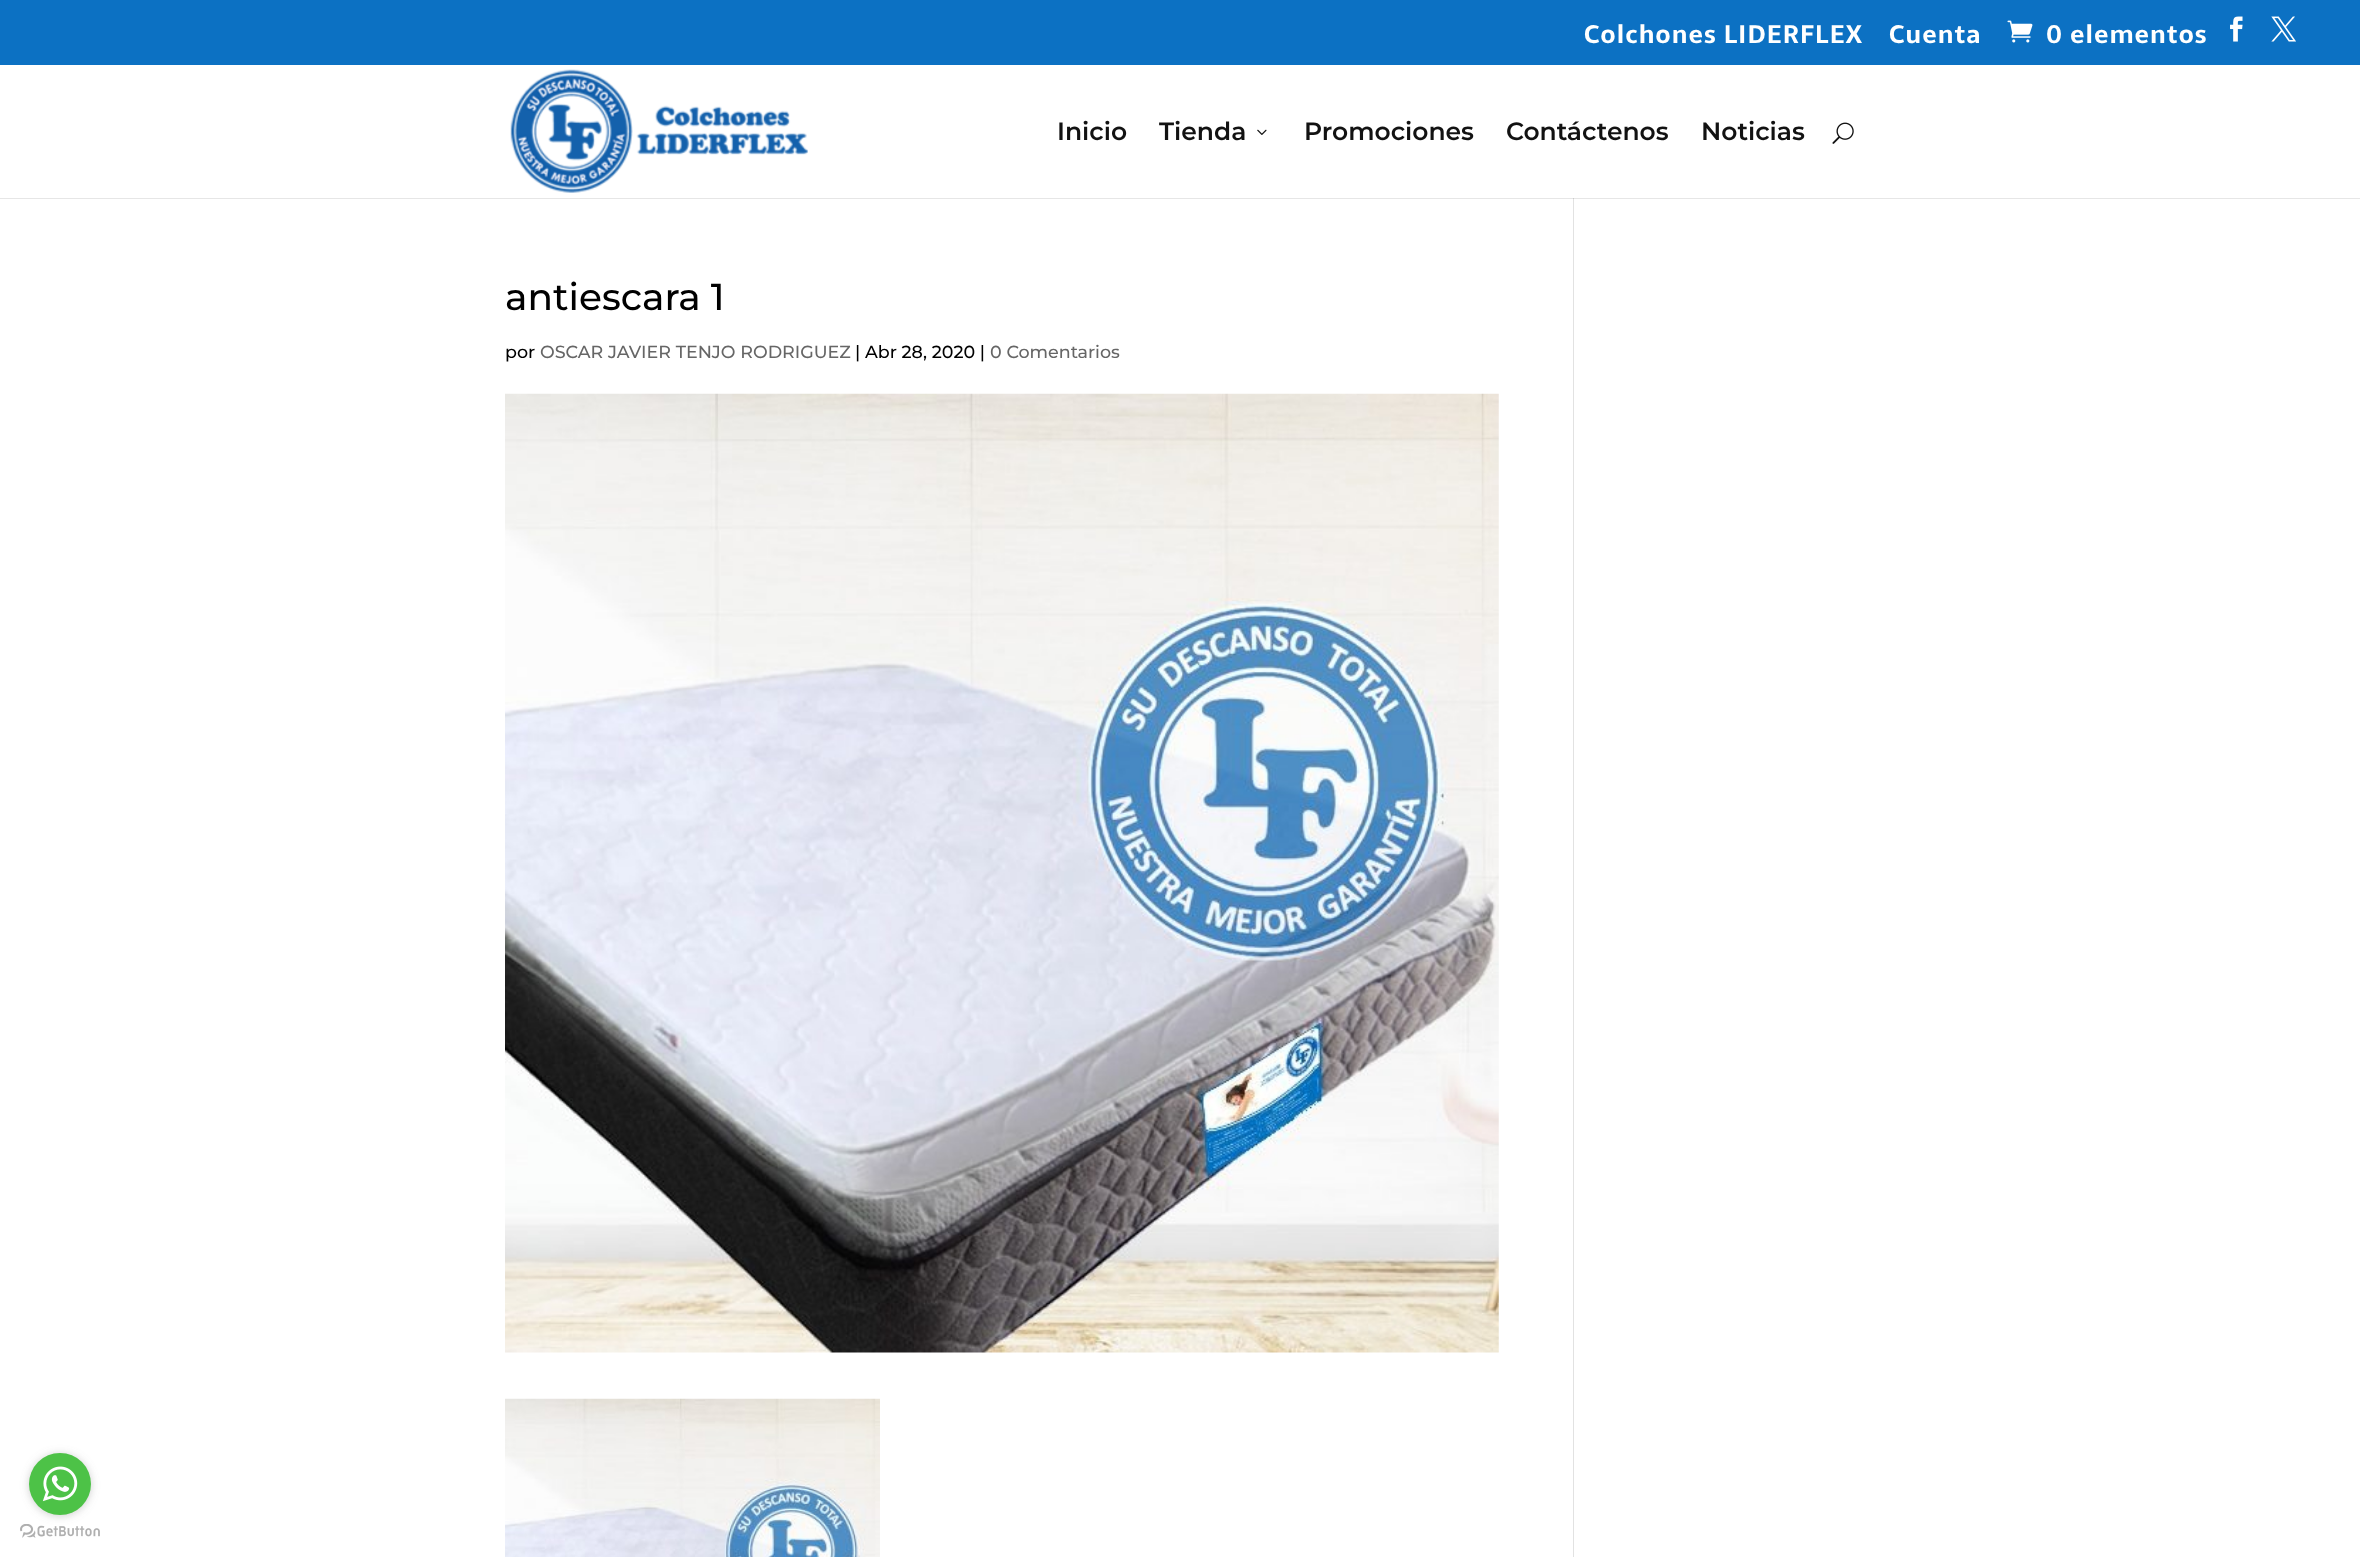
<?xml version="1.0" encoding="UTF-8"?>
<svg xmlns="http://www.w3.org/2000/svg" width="2360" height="1557">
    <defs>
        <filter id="blur1" x="-50%" y="-200%" width="200%" height="500%"><feGaussianBlur stdDeviation="4.5"/></filter>
    </defs>
    <rect width="100%" height="100%" fill="#FFFFFF"/>
    <rect x="0" y="0" width="2360" height="65" fill="#0C71C3"/>
    <text x="1584" y="43" font-family="Sarala" font-size="25" font-weight="700" letter-spacing="1.25" fill="#FFFFFF">Colchones LIDERFLEX</text>
    <text x="1889" y="43" font-family="Sarala" font-size="25" font-weight="700" letter-spacing="1.25" fill="#FFFFFF">Cuenta</text>
    <image x="2007" y="20" width="26" height="23" href="img_01.png"/>
    <text x="2046" y="43" font-family="Sarala" font-size="25" font-weight="700" letter-spacing="1.25" fill="#FFFFFF">0 elementos</text>
    <image x="2230" y="16" width="13" height="26" href="img_02.png"/>
    <image x="2271" y="16" width="25" height="26" href="img_03.png"/>
    <rect x="0" y="198" width="2360" height="1" fill="#E6E6E6"/>
    <rect x="1573" y="196" width="1" height="1361" fill="#E2E2E2"/>
    <rect x="1573" y="196" width="1" height="2" fill="#FFFFFF"/>
    <image x="510" y="69" width="298" height="124" href="img_04.png"/>
    <text x="1057" y="140" font-family="'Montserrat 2'" font-size="25" font-weight="100" fill="#121212">Inicio</text>
    <text x="1159" y="140" font-family="'Montserrat 2'" font-size="25" font-weight="100" fill="#121212">Tienda</text>
    <image x="1257" y="129" width="10" height="6" href="img_05.png"/>
    <text x="1304" y="140" font-family="'Montserrat 2'" font-size="25" font-weight="100" fill="#121212">Promociones</text>
    <text x="1506" y="140" font-family="'Montserrat 2'" font-size="25" font-weight="100" fill="#121212">Contáctenos</text>
    <text x="1701" y="140" font-family="'Montserrat 2'" font-size="25" font-weight="100" fill="#121212">Noticias</text>
    <image x="1832" y="122" width="22" height="22" href="img_06.png"/>
    <text x="505" y="310" font-family="Montserrat" font-size="37.5" font-weight="100" fill="#000000">antiescara 1</text>
    <text x="505" y="358" font-family="Montserrat" font-size="17.5" font-weight="100" fill="#000000">por</text>
    <text x="540" y="358" font-family="Montserrat" font-size="17.5" font-weight="100" fill="#666666">OSCAR JAVIER TENJO RODRIGUEZ</text>
    <text x="855" y="358" font-family="Montserrat" font-size="17.5" font-weight="100" fill="#000000">| Abr 28, 2020 |</text>
    <text x="990" y="358" font-family="Montserrat" font-size="17.5" font-weight="100" fill="#666666">0 Comentarios</text>
    <image x="505" y="393" width="994" height="960" href="img_07.png"/>
    <image x="505" y="1398" width="375" height="159" href="img_08.png"/>
    <rect x="1573" y="198" width="1" height="1" fill="#CBCBCB"/>
    <image x="20" y="1524" width="80" height="14" href="img_10.png"/>
    <rect x="29" y="1454" width="62" height="62" rx="31" fill="#888888" fill-opacity="0.4" filter="url(#blur1)"/>
    <circle cx="60" cy="1484" r="31" fill="#4DC247"/>
    <image x="42" y="1466" width="36" height="36" href="img_09.png"/>
</svg>
